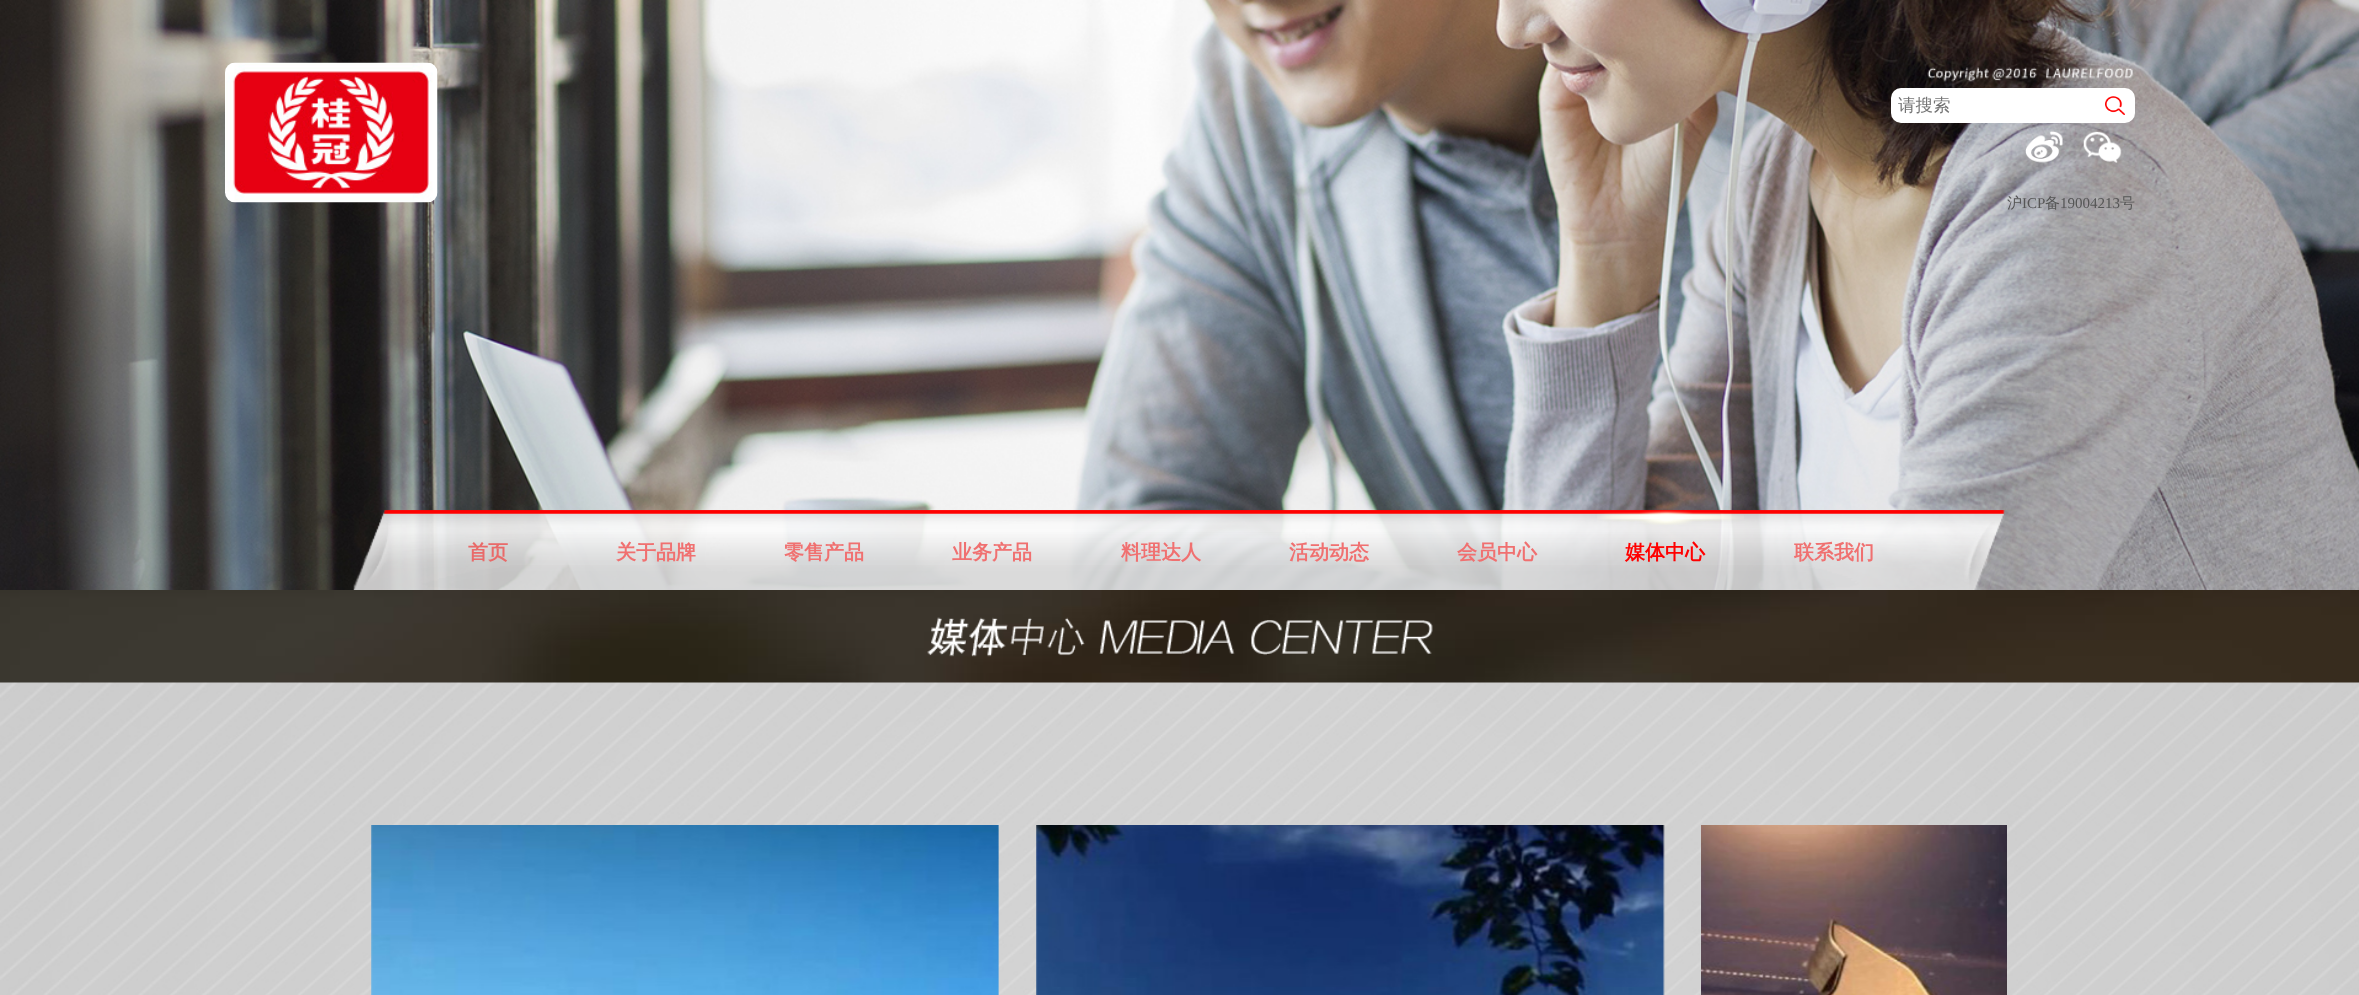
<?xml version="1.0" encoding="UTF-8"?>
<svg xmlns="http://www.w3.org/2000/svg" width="2359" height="995">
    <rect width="100%" height="100%" fill="#FFFFFF"/>
    <image x="0" y="0" width="2359" height="590" href="img_06.png"/>
    <image x="225" y="62" width="213" height="141" href="img_01.png"/>
    <image x="1927" y="67" width="206" height="15" href="img_02.png"/>
    <rect x="1891" y="88" width="244" height="35" rx="10" fill="#FFFFFF"/>
    <image x="2105" y="96" width="20" height="19" href="img_03.png"/>
    <text x="1898" y="111" font-family="WenQuanYi Zen Hei" font-size="17.5" font-weight="500" fill="#757575">请搜索</text>
    <image x="2025" y="131" width="38" height="32" href="img_04.png"/>
    <image x="2083" y="131" width="39" height="32" href="img_05.png"/>
    <text x="2007" y="208" font-family="WenQuanYi Zen Hei" font-size="15" font-weight="500" fill="#555555">沪</text>
    <text x="2022" y="208" font-family="Liberation Serif" font-size="15" fill="#555555">ICP</text>
    <text x="2045" y="208" font-family="WenQuanYi Zen Hei" font-size="15" font-weight="500" fill="#555555">备</text>
    <text x="2060" y="208" font-family="Liberation Serif" font-size="15" fill="#555555">19004213</text>
    <text x="2120" y="208" font-family="WenQuanYi Zen Hei" font-size="15" font-weight="500" fill="#555555">号</text>
    <image x="353" y="510" width="1652" height="80" href="img_07.png"/>
    <text x="468" y="559" font-family="WenQuanYi Zen Hei" font-size="20" font-weight="700" fill="#E96A69">首页</text>
    <text x="616" y="559" font-family="WenQuanYi Zen Hei" font-size="20" font-weight="700" fill="#F07070">关于品牌</text>
    <text x="784" y="559" font-family="WenQuanYi Zen Hei" font-size="20" font-weight="700" fill="#F07070">零售产品</text>
    <text x="952" y="559" font-family="WenQuanYi Zen Hei" font-size="20" font-weight="700" fill="#F07070">业务产品</text>
    <text x="1121" y="559" font-family="WenQuanYi Zen Hei" font-size="20" font-weight="700" fill="#F07070">料理达人</text>
    <text x="1289" y="559" font-family="WenQuanYi Zen Hei" font-size="20" font-weight="700" fill="#F07070">活动动态</text>
    <text x="1457" y="559" font-family="WenQuanYi Zen Hei" font-size="20" font-weight="700" fill="#F07070">会员中心</text>
    <image x="1597" y="510" width="147" height="15" href="img_08.png"/>
    <text x="1625" y="559" font-family="WenQuanYi Zen Hei" font-size="20" font-weight="700" fill="#FF0000">媒体中心</text>
    <text x="1794" y="559" font-family="WenQuanYi Zen Hei" font-size="20" font-weight="700" fill="#F07070">联系我们</text>
    <image x="0" y="590" width="2359" height="93" href="img_09.png"/>
    <rect x="0" y="590" width="2359" height="93" fill="#1E1912" fill-opacity="0.5"/>
    <image x="927" y="617" width="506" height="40" href="img_10.png"/>
    <image x="0" y="682" width="2359" height="313" href="img_11.png"/>
    <image x="371" y="825" width="628" height="170" href="img_12.png"/>
    <image x="1036" y="825" width="629" height="170" href="img_13.png"/>
    <image x="1701" y="825" width="306" height="170" href="img_14.png"/>
</svg>
